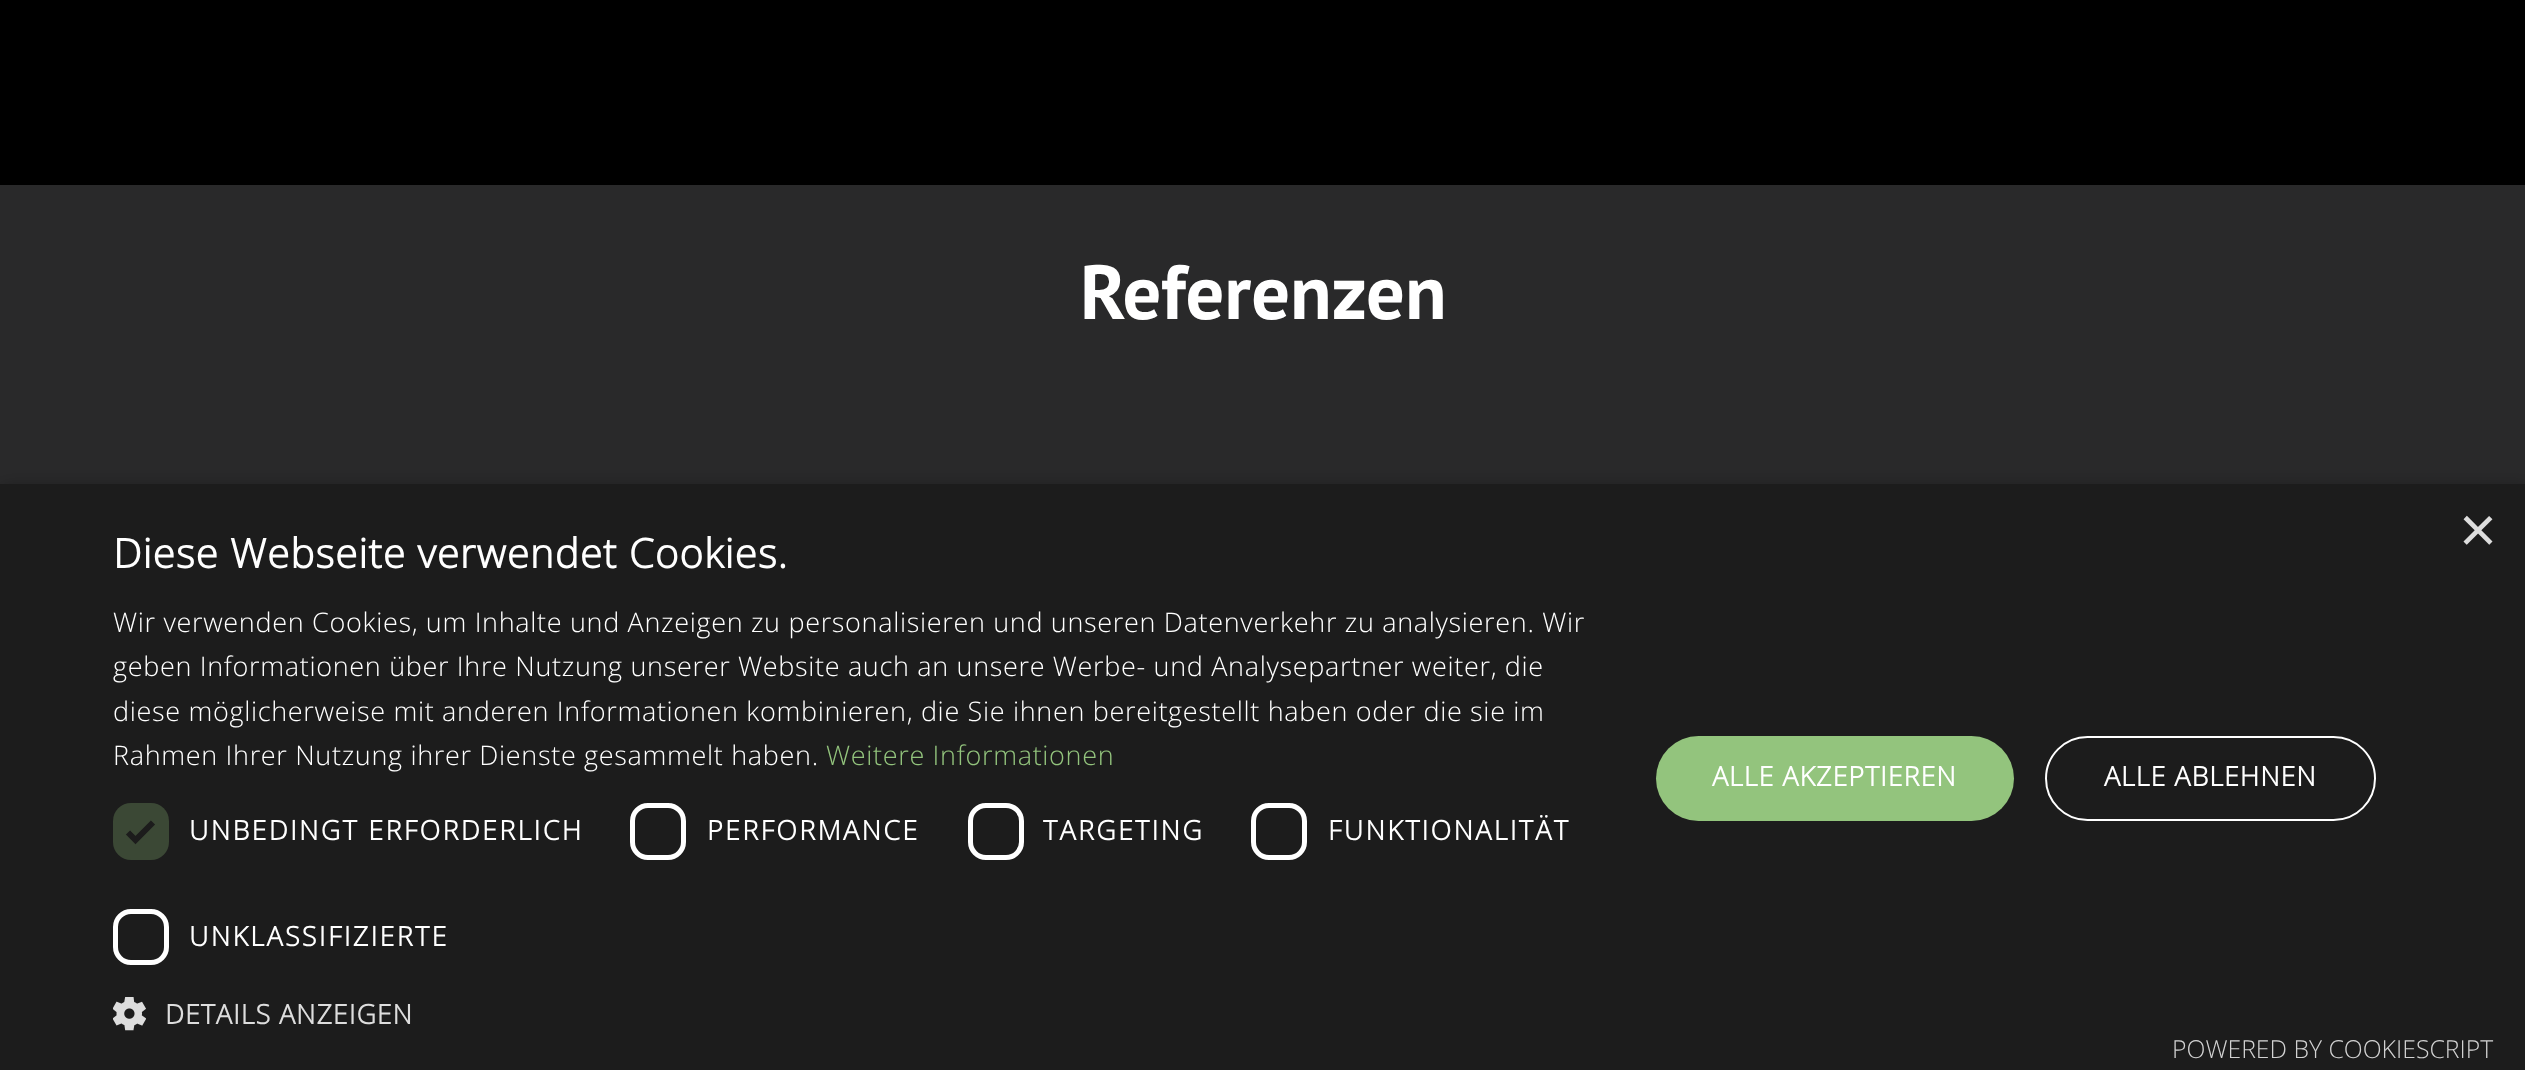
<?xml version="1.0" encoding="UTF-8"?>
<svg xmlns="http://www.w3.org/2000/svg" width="2525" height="1070">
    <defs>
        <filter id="blur1" x="-50%" y="-200%" width="200%" height="500%"><feGaussianBlur stdDeviation="9"/></filter>
    </defs>
    <rect width="100%" height="100%" fill="#29292A"/>
    <rect x="0" y="0" width="2525" height="185" fill="#000000"/>
    <text x="1080" y="319" font-family="PT Sans" font-size="76.5" font-weight="700" fill="#FFFFFF">Referenzen</text>
    <rect x="2" y="488" width="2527" height="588" fill="#000000" fill-opacity="0.35" filter="url(#blur1)"/>
    <rect x="0" y="484" width="2525" height="586" fill="#1C1C1C"/>
    <text x="2459" y="552" font-family="Liberation Sans" font-size="65" fill="#DDDDDD">×</text>
    <text x="113" y="568" font-family="Open Sans" font-size="40.5" font-weight="700" letter-spacing="0.9" fill="#FFFFFF">Diese Webseite verwendet Cookies.</text>
    <text font-family="Open Sans" font-size="27" font-weight="300" letter-spacing="0.67" fill="#FFFFFF">
        <tspan x="113" y="632">Wir verwenden Cookies, um Inhalte und Anzeigen zu personalisieren und unseren Datenverkehr zu analysieren. Wir</tspan>
        <tspan x="113" y="676">geben Informationen über Ihre Nutzung unserer Website auch an unsere Werbe- und Analysepartner weiter, die</tspan>
        <tspan x="113" y="721">diese möglicherweise mit anderen Informationen kombinieren, die Sie ihnen bereitgestellt haben oder die sie im</tspan>
        <tspan x="113" y="765">Rahmen Ihrer Nutzung ihrer Dienste gesammelt haben.</tspan>
    </text>
    <text x="826" y="765" font-family="Open Sans" font-size="27" font-weight="300" letter-spacing="0.67" fill="#93C47D">Weitere Informationen</text>
    <rect x="113" y="803" width="56" height="57" rx="18" fill="#3B4835"/>
    <path d="M 128 832.5 L 135.5 840 L 153 822.5" fill="none" stroke="#1C1C1C" stroke-width="5.9"/>
    <text x="189" y="840" font-family="Open Sans" font-size="27" font-weight="700" letter-spacing="2.25" fill="#FFFFFF">UNBEDINGT ERFORDERLICH</text>
    <rect x="632.5" y="805.5" width="51" height="52" rx="15.5" fill="none" stroke="#FFFFFF" stroke-width="5"/>
    <text x="707" y="840" font-family="Open Sans" font-size="27" font-weight="700" letter-spacing="2.25" fill="#FFFFFF">PERFORMANCE</text>
    <rect x="970.5" y="805.5" width="51" height="52" rx="15.5" fill="none" stroke="#FFFFFF" stroke-width="5"/>
    <text x="1043" y="840" font-family="Open Sans" font-size="27" font-weight="700" letter-spacing="2.25" fill="#FFFFFF">TARGETING</text>
    <rect x="1253.5" y="805.5" width="51" height="52" rx="15.5" fill="none" stroke="#FFFFFF" stroke-width="5"/>
    <text x="1328" y="840" font-family="Open Sans" font-size="27" font-weight="700" letter-spacing="2.25" fill="#FFFFFF">FUNKTIONALITÄT</text>
    <rect x="115.5" y="911.5" width="51" height="51" rx="15.5" fill="none" stroke="#FFFFFF" stroke-width="5"/>
    <text x="189" y="946" font-family="Open Sans" font-size="27" font-weight="700" letter-spacing="2.25" fill="#FFFFFF">UNKLASSIFIZIERTE</text>
    <image x="113" y="997" width="33" height="34" href="img_01.png"/>
    <text x="165" y="1024" font-family="Open Sans" font-size="27" font-weight="700" letter-spacing="0.9" fill="#DDDDDD">DETAILS ANZEIGEN</text>
    <rect x="1656" y="736" width="358" height="85" rx="42.5" fill="#93C47D"/>
    <text x="1712" y="786" font-family="Open Sans" font-size="27" font-weight="700" letter-spacing="0.9" fill="#FFFFFF">ALLE AKZEPTIEREN</text>
    <rect x="2046" y="737" width="329" height="83" rx="41.5" fill="none" stroke="#FFFFFF" stroke-width="2"/>
    <text x="2104" y="786" font-family="Open Sans" font-size="27" font-weight="700" letter-spacing="0.9" fill="#FFFFFF">ALLE ABLEHNEN</text>
    <text x="2172" y="1058" font-family="Open Sans" font-size="24.75" font-weight="300" fill="#D2D2D2">POWERED BY COOKIESCRIPT</text>
</svg>
